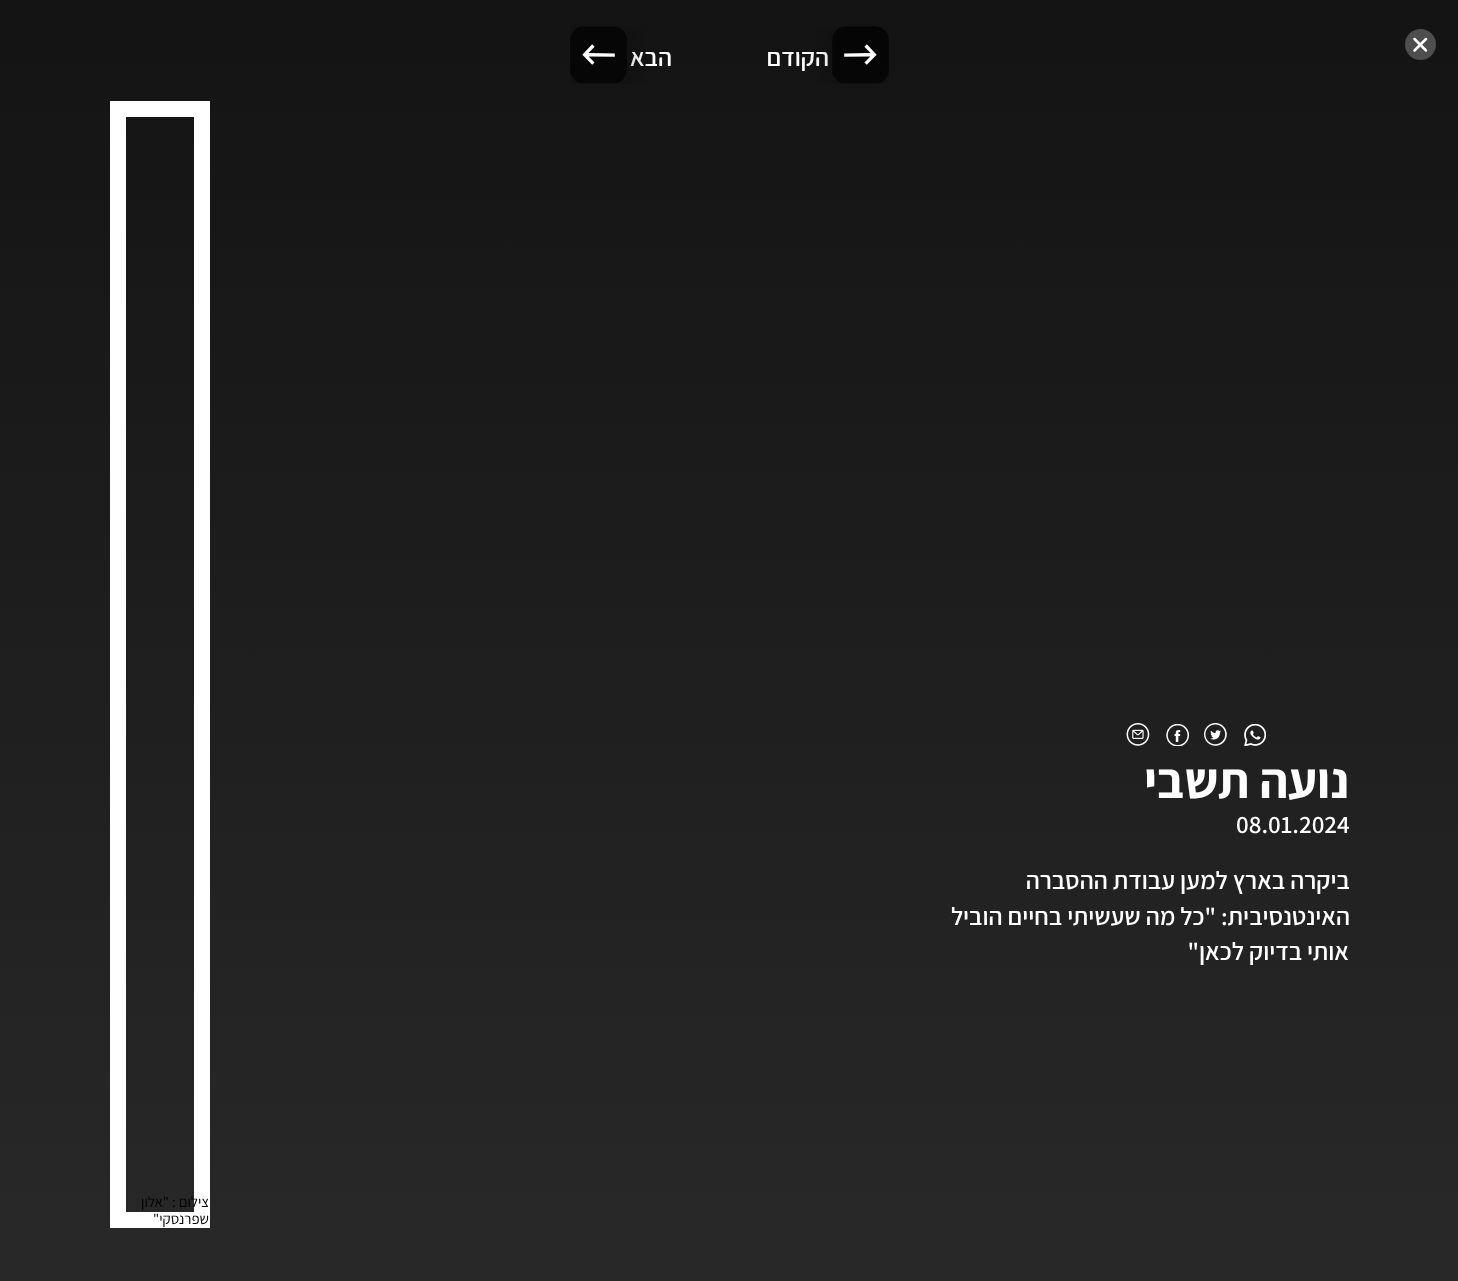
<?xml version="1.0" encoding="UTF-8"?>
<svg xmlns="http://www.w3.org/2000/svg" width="1458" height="1281">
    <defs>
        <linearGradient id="g1" gradientUnits="userSpaceOnUse" x1="729" y1="0" x2="729" y2="1281"><stop offset="0.03" stop-color="#141414"/><stop offset="0.97" stop-color="#282828"/></linearGradient>
    </defs>
    <rect width="100%" height="100%" fill="#FFFFFF"/>
    <rect x="0" y="0" width="1458" height="1281" fill="url(#g1)"/>
    <circle cx="1420.5" cy="44.5" r="15.5" fill="#4E4E4E"/>
    <path d="M 1414.5 39 L 1426 50.5 M 1426 39 L 1414.5 50.5" fill="none" stroke="#FFFFFF" stroke-width="2.5" stroke-linecap="round"/>
    <text x="829" y="66" font-family="Assistant" font-size="25.1" font-weight="600" direction="rtl" fill="#FFFFFF">הקודם</text>
    <image x="816" y="26" width="73" height="58" href="img_01.png"/>
    <text x="672" y="66" font-family="Assistant" font-size="25.1" font-weight="600" direction="rtl" fill="#FFFFFF">הבא</text>
    <image x="570" y="26" width="76" height="58" href="img_02.png"/>
    <image x="1244" y="724" width="22" height="22" href="img_03.png"/>
    <image x="1204" y="723" width="23" height="23" href="img_04.png"/>
    <image x="1166" y="724" width="23" height="22" href="img_05.png"/>
    <image x="1126" y="723" width="24" height="23" href="img_06.png"/>
    <text x="1349" y="798" font-family="Assistant" font-size="50" font-weight="700" direction="rtl" fill="#FFFFFF">נועה תשבי</text>
    <text x="1236" y="833" font-family="Assistant" font-size="25.1" font-weight="600" fill="#FFFFFF">08.01.2024</text>
    <text font-family="Assistant" font-size="25.1" font-weight="600" direction="rtl" fill="#FFFFFF">
        <tspan x="1350" y="889">ביקרה בארץ למען עבודת ההסברה</tspan>
        <tspan x="1350" y="925">האינטנסיבית: "כל מה שעשיתי בחיים הוביל</tspan>
    </text>
    <text x="1349" y="960" font-family="Assistant" font-size="25.1" font-weight="600" direction="rtl" fill="#FFFFFF">אותי בדיוק לכאן"</text>
    <rect x="118" y="109" width="84" height="1111" fill="none" stroke="#FFFFFF" stroke-width="16"/>
    <text x="209" y="1207" font-family="Assistant" font-size="15" direction="rtl" fill="#000000">צילום</text>
    <text x="172" y="1207" font-family="Assistant" font-size="15" fill="#000000">:</text>
    <text x="169" y="1207" font-family="Assistant" font-size="15" direction="rtl" fill="#000000">"אלון</text>
    <text x="209" y="1224" font-family="Assistant" font-size="15" direction="rtl" fill="#000000">שפרנסקי"</text>
</svg>
